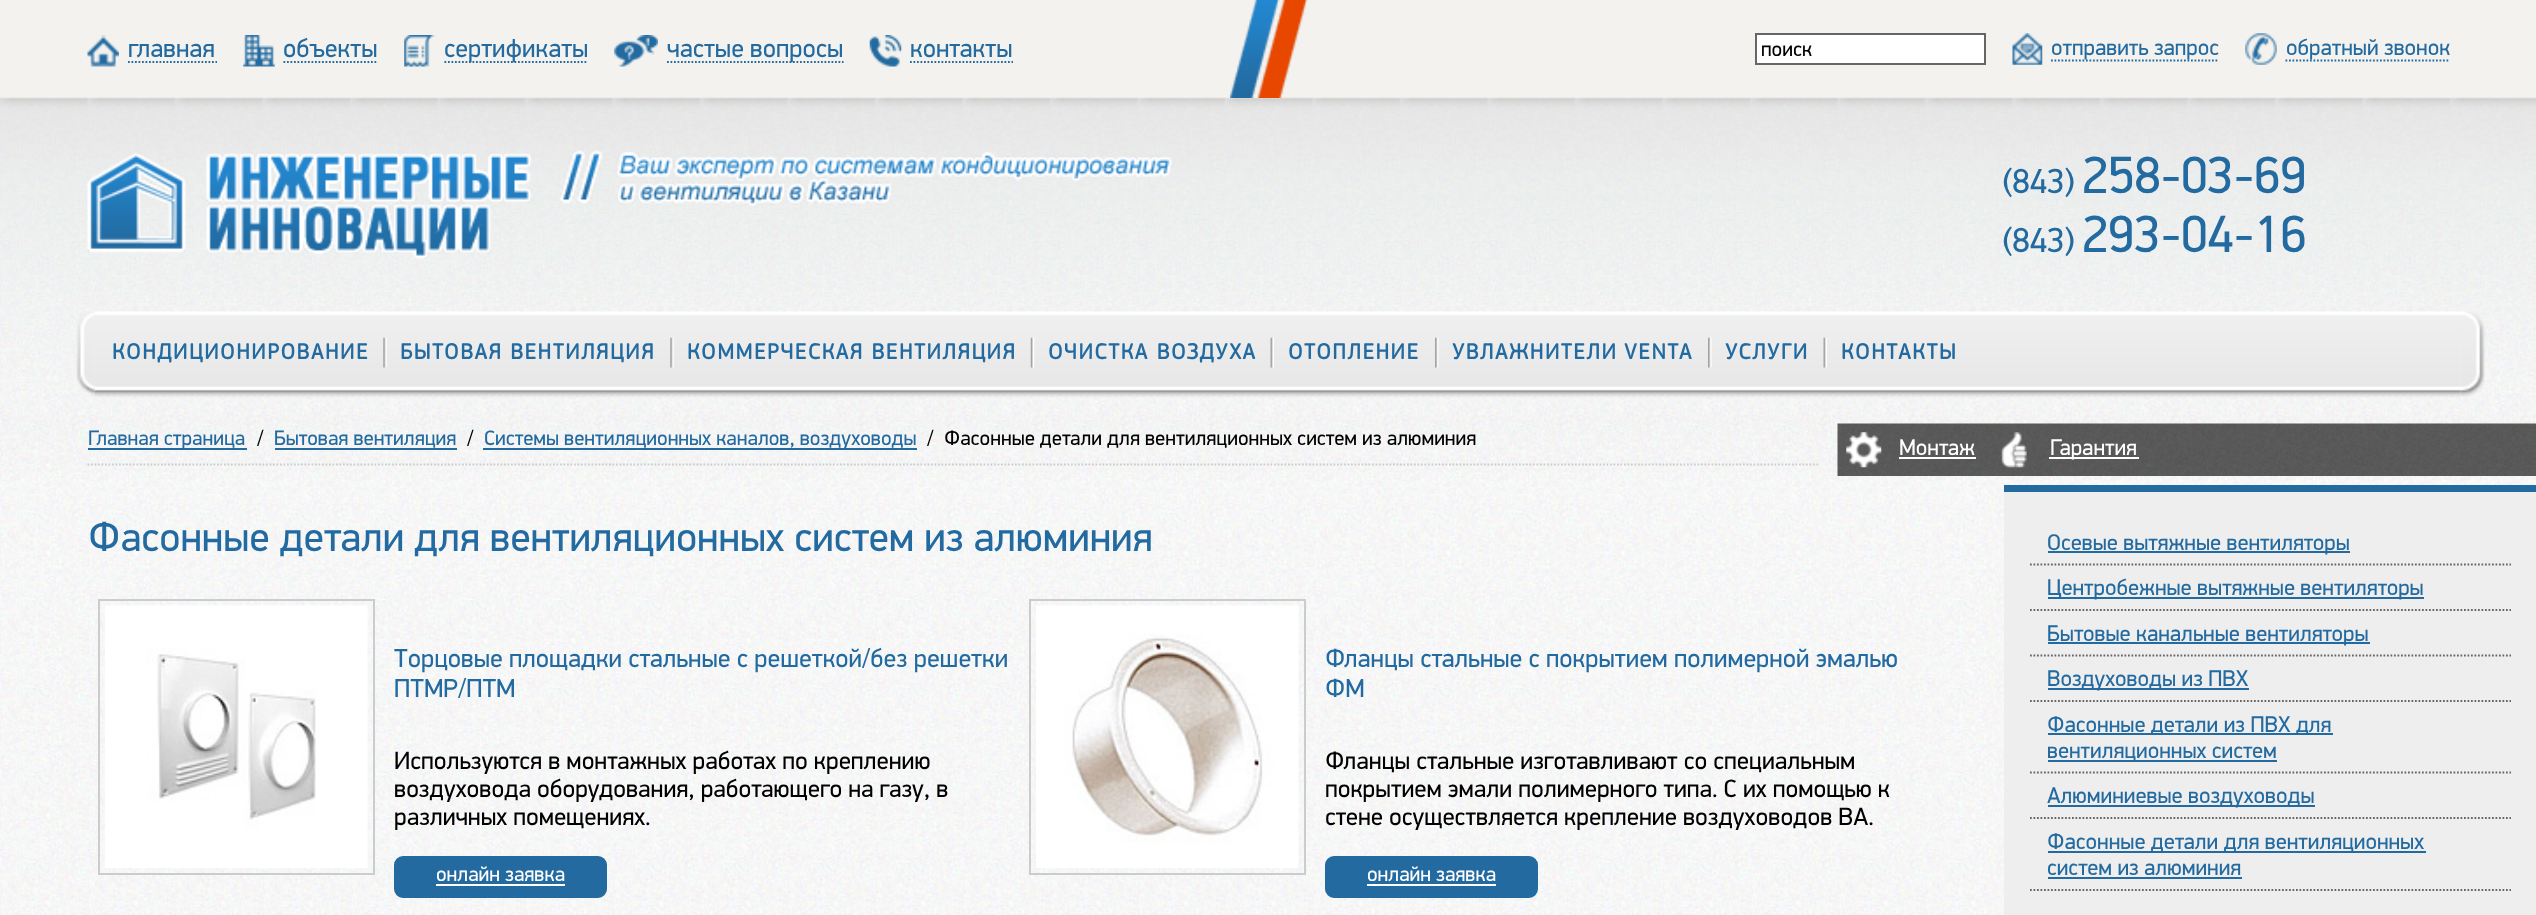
<?xml version="1.0" encoding="UTF-8"?>
<svg xmlns="http://www.w3.org/2000/svg" width="2536" height="915">
    <rect width="100%" height="100%" fill="#FFFFFF"/>
    <image x="0" y="481" width="2536" height="434" href="img_01.png"/>
    <image x="0" y="0" width="2536" height="481" href="img_02.png"/>
    <image x="1230" y="0" width="78" height="98" href="img_03.png"/>
    <image x="87" y="35" width="32" height="32" href="img_04.png"/>
    <text x="128" y="57" font-family="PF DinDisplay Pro" font-size="26.25" fill="#226AA0">главная</text>
    <path d="M 128 62 H 217" fill="none" stroke="#226AA0" stroke-width="1.8" stroke-dasharray="1.75 1.75"/>
    <image x="243" y="35" width="32" height="32" href="img_05.png"/>
    <text x="283" y="57" font-family="PF DinDisplay Pro" font-size="26.25" fill="#226AA0">объекты</text>
    <path d="M 283.5 62 H 378" fill="none" stroke="#226AA0" stroke-width="1.8" stroke-dasharray="1.75 1.75"/>
    <image x="404" y="35" width="32" height="32" href="img_06.png"/>
    <path d="M 444.5 62 H 588" fill="none" stroke="#226AA0" stroke-width="1.8" stroke-dasharray="1.75 1.75"/>
    <text x="444" y="57" font-family="PF DinDisplay Pro" font-size="26.25" fill="#226AA0">сертификаты</text>
    <image x="614" y="35" width="44" height="32" href="img_07.png"/>
    <path d="M 667 62 H 843.5" fill="none" stroke="#226AA0" stroke-width="1.8" stroke-dasharray="1.75 1.75"/>
    <text x="667" y="57" font-family="PF DinDisplay Pro" font-size="26.25" fill="#226AA0">частые вопросы</text>
    <image x="869" y="35" width="33" height="32" href="img_08.png"/>
    <text x="910" y="57" font-family="PF DinDisplay Pro" font-size="26.25" fill="#226AA0">контакты</text>
    <path d="M 910 62 H 1013" fill="none" stroke="#226AA0" stroke-width="1.8" stroke-dasharray="1.75 1.75"/>
    <rect x="1756" y="34" width="229" height="30" fill="#FFFFFF" stroke="#666666" stroke-width="2"/>
    <text x="1761" y="56" font-family="PF DinDisplay Pro" font-size="21" fill="#000000">поиск</text>
    <image x="2012" y="33" width="31" height="32" href="img_09.png"/>
    <path d="M 2051 60.5 H 2219" fill="none" stroke="#226AA0" stroke-width="1.8" stroke-dasharray="1.75 1.75"/>
    <text x="2051" y="55" font-family="PF DinDisplay Pro" font-size="22.75" fill="#226AA0">отправить запрос</text>
    <image x="2245" y="33" width="32" height="32" href="img_10.png"/>
    <path d="M 2285.5 60.5 H 2450" fill="none" stroke="#226AA0" stroke-width="1.8" stroke-dasharray="1.75 1.75"/>
    <text x="2286" y="55" font-family="PF DinDisplay Pro" font-size="22.75" fill="#226AA0">обратный звонок</text>
    <image x="87" y="150" width="1086" height="109" href="img_11.png"/>
    <text x="2002" y="193" font-family="PF DinDisplay Pro" font-size="35" fill="#226AA0">(843)</text>
    <text x="2082" y="193" font-family="PF DinDisplay Pro" font-size="52.5" fill="#226AA0">258-03-69</text>
    <text x="2002" y="252" font-family="PF DinDisplay Pro" font-size="35" fill="#226AA0">(843)</text>
    <text x="2082" y="252" font-family="PF DinDisplay Pro" font-size="52.5" fill="#226AA0">293-04-16</text>
    <image x="94" y="311" width="2367" height="87" href="img_13.png"/>
    <image x="52" y="311" width="43" height="86" href="img_12.png"/>
    <text x="112" y="359" font-family="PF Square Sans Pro" font-size="22.75" font-weight="700" letter-spacing="1.6" fill="#226AA0">КОНДИЦИОНИРОВАНИЕ</text>
    <image x="383" y="337" width="4" height="31" href="img_14.png"/>
    <text x="400" y="359" font-family="PF Square Sans Pro" font-size="22.75" font-weight="700" letter-spacing="1.6" fill="#226AA0">БЫТОВАЯ ВЕНТИЛЯЦИЯ</text>
    <image x="670" y="337" width="4" height="31" href="img_14.png"/>
    <text x="687" y="359" font-family="PF Square Sans Pro" font-size="22.75" font-weight="700" letter-spacing="1.6" fill="#226AA0">КОММЕРЧЕСКАЯ ВЕНТИЛЯЦИЯ</text>
    <image x="1030" y="337" width="5" height="31" href="img_15.png"/>
    <text x="1048" y="359" font-family="PF Square Sans Pro" font-size="22.75" font-weight="700" letter-spacing="1.6" fill="#226AA0">ОЧИСТКА ВОЗДУХА</text>
    <image x="1270" y="337" width="4" height="31" href="img_16.png"/>
    <text x="1288" y="359" font-family="PF Square Sans Pro" font-size="22.75" font-weight="700" letter-spacing="1.6" fill="#226AA0">ОТОПЛЕНИЕ</text>
    <image x="1435" y="337" width="4" height="31" href="img_17.png"/>
    <text x="1452" y="359" word-spacing="-1" font-family="PF Square Sans Pro" font-size="22.75" font-weight="700" letter-spacing="1.6" fill="#226AA0">УВЛАЖНИТЕЛИ VENTA</text>
    <image x="1708" y="337" width="4" height="31" href="img_17.png"/>
    <text x="1725" y="359" font-family="PF Square Sans Pro" font-size="22.75" font-weight="700" letter-spacing="1.6" fill="#226AA0">УСЛУГИ</text>
    <image x="1823" y="337" width="4" height="31" href="img_16.png"/>
    <text x="1841" y="359" font-family="PF Square Sans Pro" font-size="22.75" font-weight="700" letter-spacing="1.6" fill="#226AA0">КОНТАКТЫ</text>
    <image x="2460" y="311" width="25" height="86" href="img_18.png"/>
    <path d="M 87.5 464.5 H 1820" fill="none" stroke="#CCCCCC" stroke-width="1.8" stroke-dasharray="1.75 1.75"/>
    <rect x="88" y="448" width="159" height="2" fill="#226AA0"/>
    <text x="88" y="445" font-family="PF DinDisplay Pro" font-size="21" fill="#226AA0">Главная страница</text>
    <text x="257" y="445" font-family="PF DinDisplay Pro" font-size="21" fill="#000000">/</text>
    <text x="274" y="445" font-family="PF DinDisplay Pro" font-size="21" fill="#226AA0">Бытовая вентиляция</text>
    <rect x="275" y="448" width="182" height="2" fill="#226AA0"/>
    <text x="467" y="445" font-family="PF DinDisplay Pro" font-size="21" fill="#000000">/</text>
    <rect x="483" y="448" width="434" height="2" fill="#226AA0"/>
    <text x="484" y="445" font-family="PF DinDisplay Pro" font-size="21" fill="#226AA0">Системы вентиляционных каналов, воздуховоды</text>
    <text x="927" y="445" font-family="PF DinDisplay Pro" font-size="21" fill="#000000">/</text>
    <text x="944" y="445" font-family="PF DinDisplay Pro" font-size="21" fill="#000000">Фасонные детали для вентиляционных систем из алюминия</text>
    <image x="1837" y="423" width="699" height="53" href="img_19.png"/>
    <image x="1846" y="432" width="36" height="36" href="img_20.png"/>
    <text x="1899" y="455" font-family="PF DinDisplay Pro" font-size="22.75" fill="#FFFFFF">Монтаж</text>
    <rect x="1899" y="457" width="77" height="2" fill="#FFFFFF"/>
    <image x="2001" y="432" width="26" height="36" href="img_21.png"/>
    <rect x="2049" y="457" width="90" height="2" fill="#FFFFFF"/>
    <text x="2050" y="455" font-family="PF DinDisplay Pro" font-size="22.75" fill="#FFFFFF">Гарантия</text>
    <text x="88" y="551" font-family="PF DinDisplay Pro" font-size="42" fill="#226AA0">Фасонные детали для вентиляционных систем из алюминия</text>
    <rect x="99" y="600" width="275" height="274" fill="none" stroke="#CCCCCC" stroke-width="2"/>
    <image x="105" y="605" width="263" height="263" href="img_22.png"/>
    <text font-family="PF DinDisplay Pro" font-size="26.25" fill="#226AA0">
        <tspan x="394" y="667">Торцовые площадки стальные с решеткой/без решетки</tspan>
        <tspan x="394" y="697">ПТМР/ПТМ</tspan>
    </text>
    <text font-family="PF DinDisplay Pro" font-size="25.2" fill="#000000">
        <tspan x="394" y="769">Используются в монтажных работах по креплению</tspan>
        <tspan x="394" y="797">воздуховода оборудования, работающего на газу, в</tspan>
        <tspan x="394" y="825">различных помещениях.</tspan>
    </text>
    <rect x="395" y="857" width="211" height="40" rx="8" fill="#226AA0" stroke="#226AA0" stroke-width="2"/>
    <text x="436" y="881" font-family="PF DinDisplay Pro" font-size="21" fill="#FFFFFF">онлайн заявка</text>
    <rect x="436" y="884" width="129" height="2" fill="#FFFFFF"/>
    <rect x="1030" y="600" width="275" height="274" fill="none" stroke="#CCCCCC" stroke-width="2"/>
    <image x="1036" y="605" width="263" height="263" href="img_23.png"/>
    <text font-family="PF DinDisplay Pro" font-size="26.25" fill="#226AA0">
        <tspan x="1325" y="667">Фланцы стальные с покрытием полимерной эмалью</tspan>
        <tspan x="1325" y="697">ФМ</tspan>
    </text>
    <text font-family="PF DinDisplay Pro" font-size="25.2" fill="#000000">
        <tspan x="1325" y="769">Фланцы стальные изготавливают со специальным</tspan>
        <tspan x="1325" y="797">покрытием эмали полимерного типа. С их помощью к</tspan>
        <tspan x="1325" y="825">стене осуществляется крепление воздуховодов ВА.</tspan>
    </text>
    <rect x="1326" y="857" width="211" height="40" rx="8" fill="#226AA0" stroke="#226AA0" stroke-width="2"/>
    <text x="1367" y="881" font-family="PF DinDisplay Pro" font-size="21" fill="#FFFFFF">онлайн заявка</text>
    <rect x="1367" y="884" width="129" height="2" fill="#FFFFFF"/>
    <rect x="2004" y="492" width="532" height="423" fill="#EEEEEE"/>
    <rect x="2004" y="485" width="532" height="7" fill="#226AA0"/>
    <path d="M 2030 564.5 H 2511" fill="none" stroke="#666666" stroke-width="1.8" stroke-dasharray="1.75 1.75"/>
    <rect x="2048" y="551" width="302" height="2" fill="#226AA0"/>
    <text x="2047" y="550" font-family="PF DinDisplay Pro" font-size="22.75" fill="#226AA0">Осевые вытяжные вентиляторы</text>
    <path d="M 2030 610 H 2511" fill="none" stroke="#666666" stroke-width="1.8" stroke-dasharray="1.75 1.75"/>
    <rect x="2048" y="597" width="376" height="2" fill="#226AA0"/>
    <text x="2047" y="595" font-family="PF DinDisplay Pro" font-size="22.75" fill="#226AA0">Центробежные вытяжные вентиляторы</text>
    <path d="M 2030 655.5 H 2511" fill="none" stroke="#666666" stroke-width="1.8" stroke-dasharray="1.75 1.75"/>
    <rect x="2048" y="642" width="322" height="2" fill="#226AA0"/>
    <text x="2047" y="641" font-family="PF DinDisplay Pro" font-size="22.75" fill="#226AA0">Бытовые канальные вентиляторы</text>
    <path d="M 2030 701 H 2511" fill="none" stroke="#666666" stroke-width="1.8" stroke-dasharray="1.75 1.75"/>
    <rect x="2048" y="688" width="201" height="2" fill="#226AA0"/>
    <text x="2047" y="686" font-family="PF DinDisplay Pro" font-size="22.75" fill="#226AA0">Воздуховоды из ПВХ</text>
    <path d="M 2030 772.5 H 2511" fill="none" stroke="#666666" stroke-width="1.8" stroke-dasharray="1.75 1.75"/>
    <rect x="2048" y="733" width="285" height="2" fill="#226AA0"/>
    <text x="2047" y="732" font-family="PF DinDisplay Pro" font-size="22.75" fill="#226AA0">Фасонные детали из ПВХ для</text>
    <rect x="2048" y="760" width="229" height="2" fill="#226AA0"/>
    <text x="2047" y="758" font-family="PF DinDisplay Pro" font-size="22.75" fill="#226AA0">вентиляционных систем</text>
    <path d="M 2030 818 H 2511" fill="none" stroke="#666666" stroke-width="1.8" stroke-dasharray="1.75 1.75"/>
    <rect x="2048" y="805" width="267" height="2" fill="#226AA0"/>
    <text x="2047" y="803" font-family="PF DinDisplay Pro" font-size="22.75" fill="#226AA0">Алюминиевые воздуховоды</text>
    <path d="M 2030 890 H 2511" fill="none" stroke="#666666" stroke-width="1.8" stroke-dasharray="1.75 1.75"/>
    <rect x="2048" y="851" width="378" height="2" fill="#226AA0"/>
    <text font-family="PF DinDisplay Pro" font-size="22.75" fill="#226AA0">
        <tspan x="2047" y="849">Фасонные детали для вентиляционных</tspan>
        <tspan x="2047" y="875">систем из алюминия</tspan>
    </text>
    <rect x="2048" y="877" width="194" height="2" fill="#226AA0"/>
</svg>
